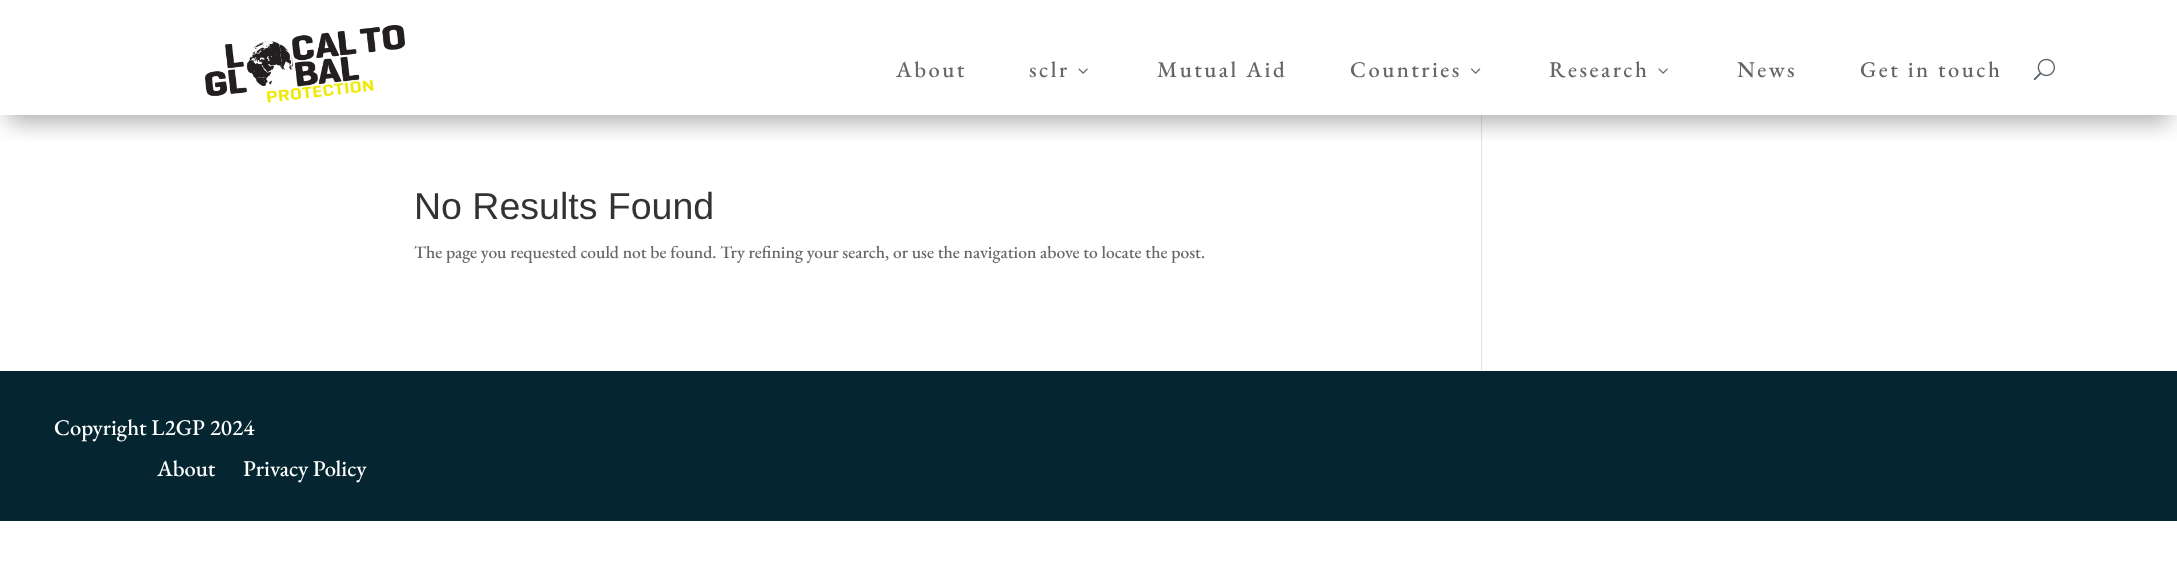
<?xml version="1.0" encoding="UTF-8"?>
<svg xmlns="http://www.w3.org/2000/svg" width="2177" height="585">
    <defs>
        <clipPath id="clip1"><rect x="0" y="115" width="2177" height="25"/></clipPath>
        <filter id="blur1" x="-50%" y="-200%" width="200%" height="500%"><feGaussianBlur stdDeviation="11"/></filter>
    </defs>
    <rect width="100%" height="100%" fill="#FFFFFF"/>
    <rect x="1481" y="115" width="1" height="256" fill="#E2E2E2"/>
    <g clip-path="url(#clip1)">
        <rect x="8" y="23" width="2162" height="100" fill="#000000" fill-opacity="0.3" filter="url(#blur1)"/>
    </g>
    <image x="205" y="25" width="200" height="78" href="img_01.png"/>
    <text x="896" y="77" font-family="EB Garamond" font-size="22.5" font-weight="500" letter-spacing="2.5" fill="#666666">About</text>
    <text x="1029" y="77" font-family="EB Garamond" font-size="22.5" font-weight="500" letter-spacing="2.5" fill="#666666">sclr</text>
    <image x="1078" y="68" width="10" height="6" href="img_02.png"/>
    <text x="1157" y="77" font-family="EB Garamond" font-size="22.5" font-weight="500" letter-spacing="2.5" fill="#666666">Mutual Aid</text>
    <text x="1350" y="77" font-family="EB Garamond" font-size="22.5" font-weight="500" letter-spacing="2.5" fill="#666666">Countries</text>
    <image x="1471" y="68" width="10" height="6" href="img_03.png"/>
    <text x="1549" y="77" font-family="EB Garamond" font-size="22.5" font-weight="500" letter-spacing="2.5" fill="#666666">Research</text>
    <image x="1658" y="68" width="10" height="6" href="img_02.png"/>
    <text x="1737" y="77" font-family="EB Garamond" font-size="22.5" font-weight="500" letter-spacing="2.5" fill="#666666">News</text>
    <text x="1860" y="77" font-family="EB Garamond" font-size="22.5" font-weight="500" letter-spacing="2.5" fill="#666666">Get in touch</text>
    <image x="2033" y="58" width="22" height="23" href="img_04.png"/>
    <text x="414" y="219" font-family="Liberation Sans" font-size="37.5" fill="#333333">No Results Found</text>
    <text x="414" y="258" font-family="EB Garamond" font-size="17.5" font-weight="500" fill="#666666">The page you requested could not be found. Try refining your search, or use the navigation above to locate the post.</text>
    <rect x="0" y="371" width="2177" height="150" fill="#052631"/>
    <text x="54" y="435" font-family="EB Garamond" font-size="22.5" font-weight="500" fill="#FFFFFF">Copyright L2GP 2024</text>
    <text x="157" y="476" font-family="EB Garamond" font-size="22.5" font-weight="500" fill="#FFFFFF">About</text>
    <text x="243" y="476" font-family="EB Garamond" font-size="22.5" font-weight="500" fill="#FFFFFF">Privacy Policy</text>
</svg>
